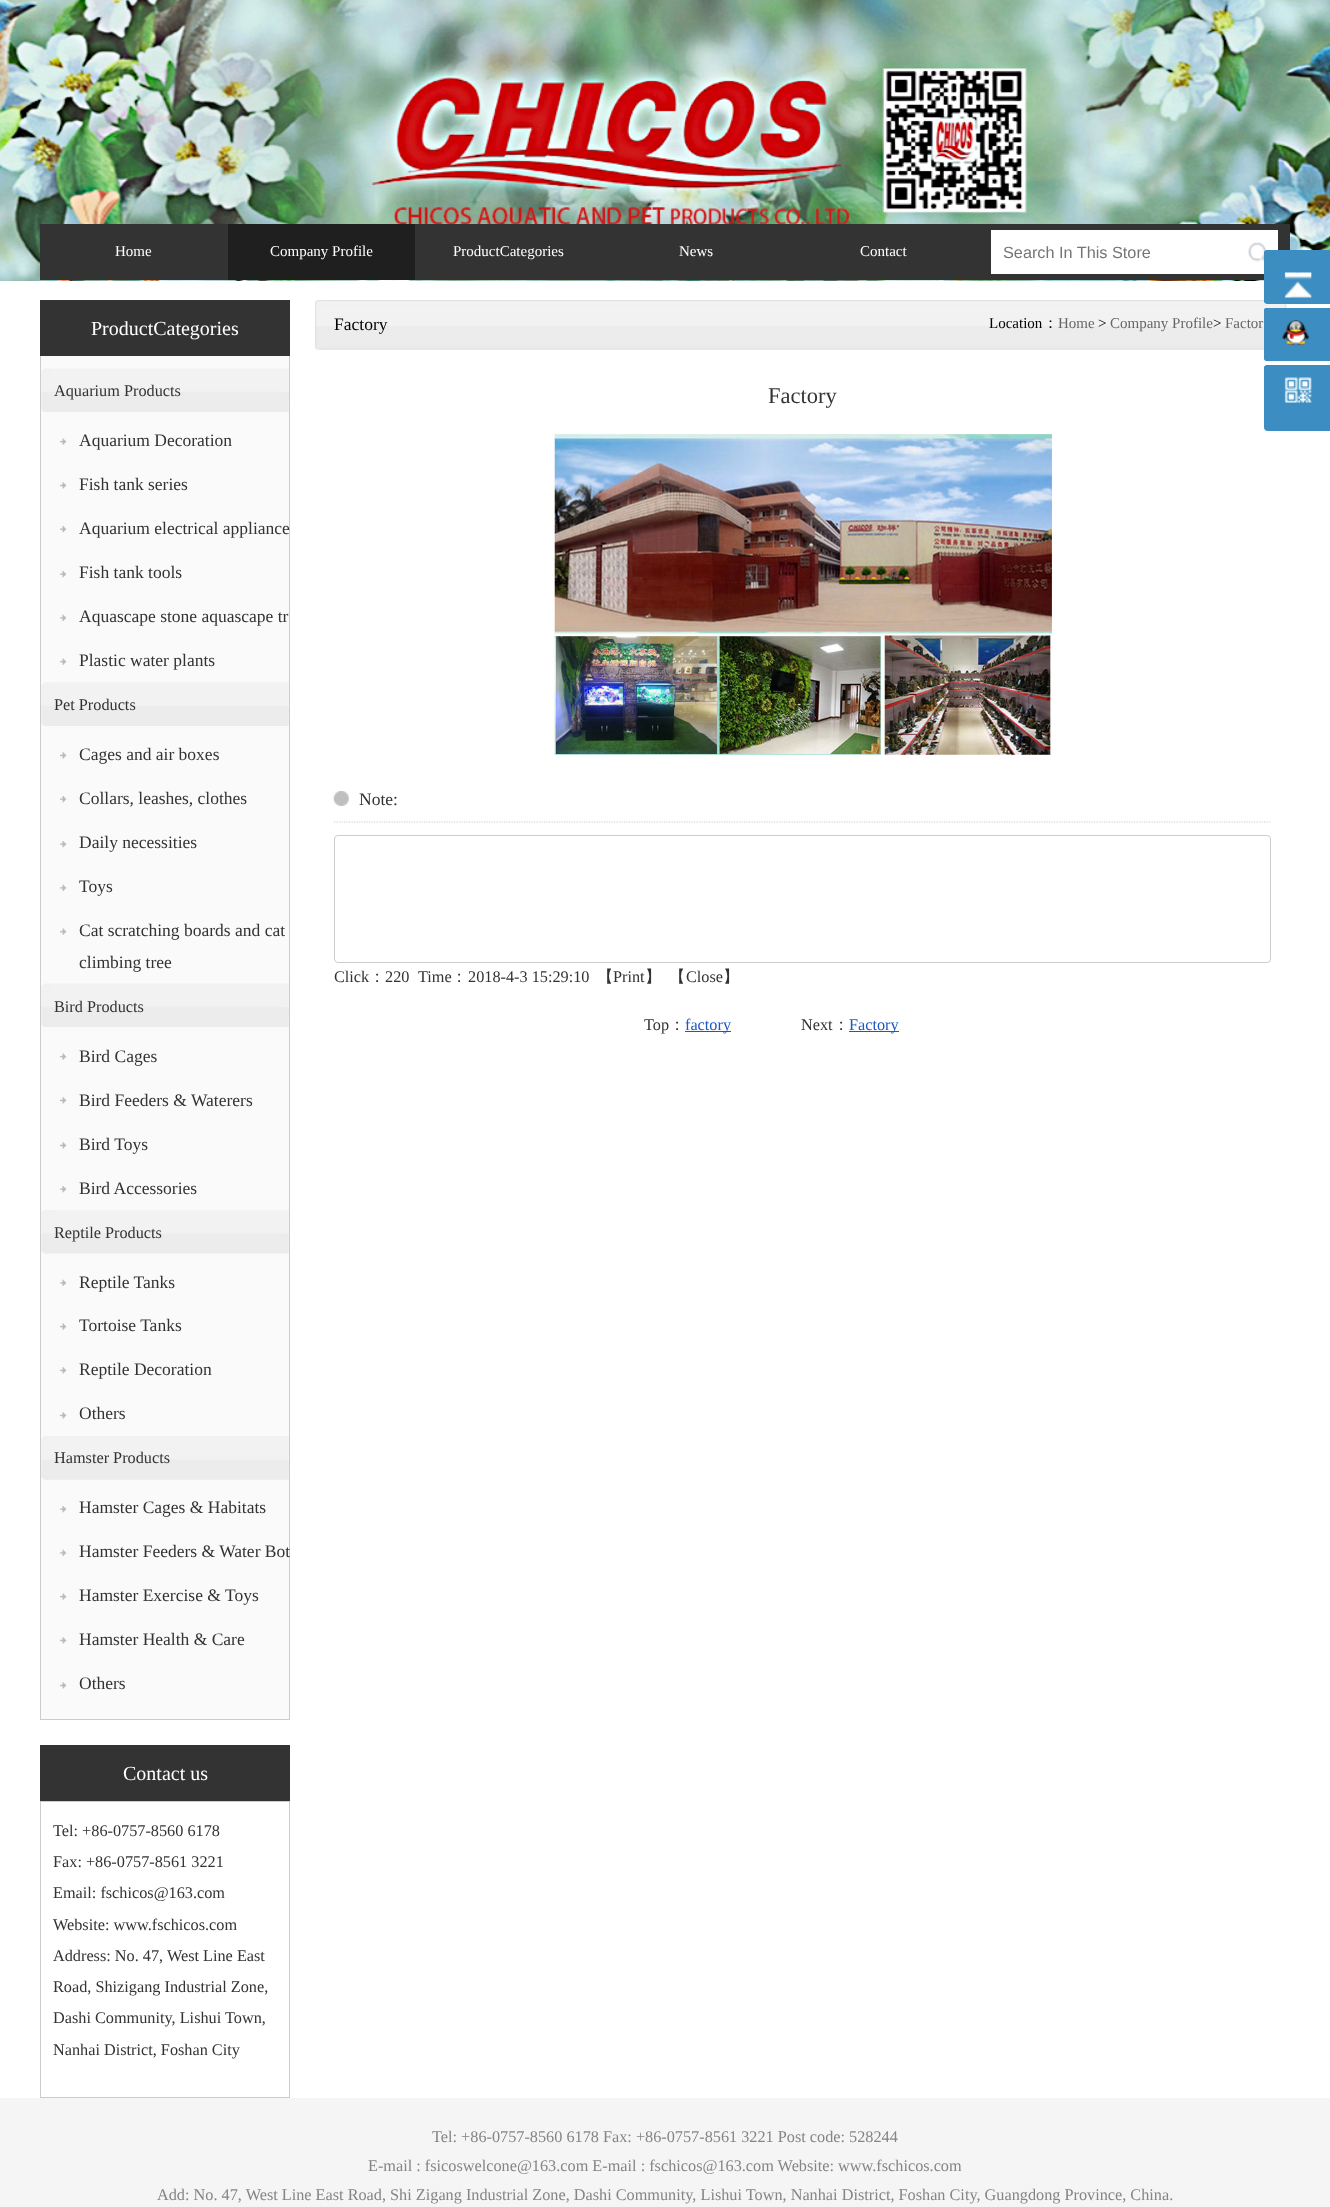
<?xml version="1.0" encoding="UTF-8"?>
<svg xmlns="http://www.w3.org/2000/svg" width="1330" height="2207">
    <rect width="100%" height="100%" fill="#FFFFFF"/>
    <image x="0" y="0" width="1330" height="281" href="img_01.png"/>
    <rect x="40" y="224" width="1250" height="56" fill="#333333"/>
    <text x="115" y="256" font-family="Liberation Serif" font-size="15" fill="#FFFFFF">Home</text>
    <rect x="228" y="224" width="187" height="56" fill="#1F1F1F"/>
    <text x="270" y="256" font-family="Liberation Serif" font-size="15" fill="#FFFFFF">Company Profile</text>
    <text x="453" y="256" font-family="Liberation Serif" font-size="15" fill="#FFFFFF">ProductCategories</text>
    <text x="679" y="256" font-family="Liberation Serif" font-size="15" fill="#FFFFFF">News</text>
    <text x="860" y="256" font-family="Liberation Serif" font-size="15" fill="#FFFFFF">Contact</text>
    <rect x="991" y="230" width="287" height="44" fill="#FFFFFF"/>
    <text x="1003" y="258" font-family="Liberation Sans" font-size="16.25" fill="#757575">Search In This Store</text>
    <image x="1248" y="242" width="21" height="23" href="img_02.png"/>
    <image x="315" y="300" width="972" height="50" href="img_14.png"/>
    <rect x="1264" y="250" width="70" height="54" rx="4" fill="#3C8DC1"/>
    <image x="1264" y="250" width="48" height="54" href="img_03.png"/>
    <image x="1264" y="308" width="66" height="54" href="img_04.png"/>
    <rect x="1264" y="365" width="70" height="66" rx="4" fill="#3C8DC1"/>
    <image x="1264" y="365" width="48" height="38" href="img_05.png"/>
    <rect x="40" y="300" width="250" height="56" fill="#333333"/>
    <text x="91" y="335" font-family="Liberation Serif" font-size="20" fill="#FFFFFF">ProductCategories</text>
    <rect x="41" y="356" width="248" height="1363" fill="#FAFAFA"/>
    <rect x="289" y="356" width="1" height="1364" fill="#CCCCCC"/>
    <rect x="40" y="1719" width="250" height="1" fill="#CCCCCC"/>
    <rect x="40" y="356" width="1" height="1364" fill="#CCCCCC"/>
    <image x="41" y="368" width="248" height="44" href="img_06.png"/>
    <text x="54" y="396" font-family="Liberation Serif" font-size="16.25" fill="#333333">Aquarium Products</text>
    <image x="60" y="438" width="7" height="7" href="img_07.png"/>
    <text x="79" y="446" font-family="Liberation Serif" font-size="17.5" fill="#333333">Aquarium Decoration</text>
    <image x="60" y="482" width="7" height="7" href="img_08.png"/>
    <text x="79" y="490" font-family="Liberation Serif" font-size="17.5" fill="#333333">Fish tank series</text>
    <image x="60" y="526" width="7" height="7" href="img_09.png"/>
    <text x="79" y="534" font-family="Liberation Serif" font-size="17.5" fill="#333333">Aquarium electrical appliance</text>
    <image x="60" y="571" width="7" height="7" href="img_09.png"/>
    <text x="79" y="578" font-family="Liberation Serif" font-size="17.5" fill="#333333">Fish tank tools</text>
    <image x="60" y="614" width="7" height="7" href="img_10.png"/>
    <text x="79" y="622" font-family="Liberation Serif" font-size="17.5" fill="#333333">Aquascape stone aquascape tr</text>
    <image x="60" y="658" width="7" height="7" href="img_07.png"/>
    <text x="79" y="666" font-family="Liberation Serif" font-size="17.5" fill="#333333">Plastic water plants</text>
    <image x="41" y="682" width="248" height="44" href="img_11.png"/>
    <text x="54" y="710" font-family="Liberation Serif" font-size="16.25" fill="#333333">Pet Products</text>
    <image x="60" y="752" width="7" height="7" href="img_08.png"/>
    <text x="79" y="760" font-family="Liberation Serif" font-size="17.5" fill="#333333">Cages and air boxes</text>
    <image x="60" y="796" width="7" height="7" href="img_09.png"/>
    <text x="79" y="804" font-family="Liberation Serif" font-size="17.5" fill="#333333">Collars, leashes, clothes</text>
    <image x="60" y="841" width="7" height="7" href="img_09.png"/>
    <text x="79" y="848" font-family="Liberation Serif" font-size="17.5" fill="#333333">Daily necessities</text>
    <image x="60" y="884" width="7" height="7" href="img_10.png"/>
    <text x="79" y="892" font-family="Liberation Serif" font-size="17.5" fill="#333333">Toys</text>
    <image x="60" y="928" width="7" height="7" href="img_07.png"/>
    <text font-family="Liberation Serif" font-size="17.5" fill="#333333">
        <tspan x="79" y="936">Cat scratching boards and cat</tspan>
        <tspan x="79" y="968">climbing tree</tspan>
    </text>
    <image x="41" y="983" width="248" height="44" href="img_06.png"/>
    <text x="54" y="1012" font-family="Liberation Serif" font-size="16.25" fill="#333333">Bird Products</text>
    <image x="60" y="1053" width="7" height="7" href="img_07.png"/>
    <text x="79" y="1062" font-family="Liberation Serif" font-size="17.5" fill="#333333">Bird Cages</text>
    <image x="60" y="1097" width="7" height="7" href="img_08.png"/>
    <text x="79" y="1106" font-family="Liberation Serif" font-size="17.5" fill="#333333">Bird Feeders &amp; Waterers</text>
    <image x="60" y="1142" width="7" height="7" href="img_08.png"/>
    <text x="79" y="1150" font-family="Liberation Serif" font-size="17.5" fill="#333333">Bird Toys</text>
    <image x="60" y="1186" width="7" height="7" href="img_09.png"/>
    <text x="79" y="1194" font-family="Liberation Serif" font-size="17.5" fill="#333333">Bird Accessories</text>
    <image x="41" y="1210" width="248" height="44" href="img_12.png"/>
    <text x="54" y="1238" font-family="Liberation Serif" font-size="16.25" fill="#333333">Reptile Products</text>
    <image x="60" y="1279" width="7" height="7" href="img_10.png"/>
    <text x="79" y="1288" font-family="Liberation Serif" font-size="17.5" fill="#333333">Reptile Tanks</text>
    <image x="60" y="1323" width="7" height="7" href="img_07.png"/>
    <text x="79" y="1331" font-family="Liberation Serif" font-size="17.5" fill="#333333">Tortoise Tanks</text>
    <image x="60" y="1367" width="7" height="7" href="img_08.png"/>
    <text x="79" y="1375" font-family="Liberation Serif" font-size="17.5" fill="#333333">Reptile Decoration</text>
    <image x="60" y="1412" width="7" height="7" href="img_08.png"/>
    <text x="79" y="1419" font-family="Liberation Serif" font-size="17.5" fill="#333333">Others</text>
    <image x="41" y="1436" width="248" height="44" href="img_13.png"/>
    <text x="54" y="1463" font-family="Liberation Serif" font-size="16.25" fill="#333333">Hamster Products</text>
    <image x="60" y="1506" width="7" height="7" href="img_09.png"/>
    <text x="79" y="1513" font-family="Liberation Serif" font-size="17.5" fill="#333333">Hamster Cages &amp; Habitats</text>
    <image x="60" y="1549" width="7" height="7" href="img_10.png"/>
    <text x="79" y="1557" font-family="Liberation Serif" font-size="17.5" fill="#333333">Hamster Feeders &amp; Water Bot</text>
    <image x="60" y="1593" width="7" height="7" href="img_07.png"/>
    <text x="79" y="1601" font-family="Liberation Serif" font-size="17.5" fill="#333333">Hamster Exercise &amp; Toys</text>
    <image x="60" y="1637" width="7" height="7" href="img_08.png"/>
    <text x="79" y="1645" font-family="Liberation Serif" font-size="17.5" fill="#333333">Hamster Health &amp; Care</text>
    <image x="60" y="1682" width="7" height="7" href="img_08.png"/>
    <text x="79" y="1689" font-family="Liberation Serif" font-size="17.5" fill="#333333">Others</text>
    <rect x="40" y="1745" width="250" height="56" fill="#333333"/>
    <text x="123" y="1780" font-family="Liberation Serif" font-size="20" fill="#FFFFFF">Contact us</text>
    <rect x="40.5" y="1801.5" width="249" height="296" fill="none" stroke="#CCCCCC"/>
    <text font-family="Liberation Serif" font-size="16.25" fill="#333333">
        <tspan x="53" y="1836">Tel: +86-0757-8560 6178</tspan>
        <tspan x="53" y="1867">Fax: +86-0757-8561 3221</tspan>
        <tspan x="53" y="1898">Email: fschicos@163.com</tspan>
        <tspan x="53" y="1930">Website: www.fschicos.com</tspan>
        <tspan x="53" y="1961">Address: No. 47, West Line East</tspan>
        <tspan x="53" y="1992">Road, Shizigang Industrial Zone,</tspan>
        <tspan x="53" y="2023">Dashi Community, Lishui Town,</tspan>
        <tspan x="53" y="2055">Nanhai District, Foshan City</tspan>
    </text>
    <text x="334" y="330" font-family="Liberation Serif" font-size="17.5" fill="#000000">Factory</text>
    <text x="989" y="328" font-family="Liberation Serif" font-size="15" fill="#000000">Location</text>
    <text x="1043" y="328" font-family="WenQuanYi Zen Hei" font-size="15" font-weight="500" fill="#000000">：</text>
    <text x="1058" y="328" font-family="Liberation Serif" font-size="15" fill="#666666">Home</text>
    <text x="1098" y="328" font-family="Liberation Serif" font-size="15" fill="#000000">&gt;</text>
    <text x="1110" y="328" font-family="Liberation Serif" font-size="15" fill="#666666">Company Profile</text>
    <text x="1213" y="328" font-family="Liberation Serif" font-size="15" fill="#000000">&gt;</text>
    <text x="1225" y="328" font-family="Liberation Serif" font-size="15" fill="#666666">Factor</text>
    <text x="768" y="403" font-family="Liberation Serif" font-size="22.5" fill="#333333">Factory</text>
    <image x="552" y="433" width="501" height="322" href="img_15.png"/>
    <image x="333" y="791" width="16" height="15" href="img_16.png"/>
    <path d="M 334 822 H 1271" fill="none" stroke="#CCCCCC" stroke-width="1.2" stroke-dasharray="1.25 1.25"/>
    <text x="359" y="805" font-family="Liberation Serif" font-size="17.5" fill="#333333">Note:</text>
    <rect x="334.5" y="835.5" width="936" height="127" rx="3.5" fill="none" stroke="#CCCCCC"/>
    <text x="334" y="982" font-family="Liberation Serif" font-size="16.25" fill="#333333">Click</text>
    <text x="369" y="982" font-family="WenQuanYi Zen Hei" font-size="16.25" font-weight="500" fill="#333333">：</text>
    <text x="385" y="982" font-family="Liberation Serif" font-size="16.25" fill="#333333">220</text>
    <text x="418" y="982" font-family="Liberation Serif" font-size="16.25" fill="#333333">Time</text>
    <text x="451" y="982" font-family="WenQuanYi Zen Hei" font-size="16.25" font-weight="500" fill="#333333">：</text>
    <text x="468" y="982" font-family="Liberation Serif" font-size="16.25" fill="#333333">2018-4-3 15:29:10</text>
    <text x="597" y="982" font-family="WenQuanYi Zen Hei" font-size="16.25" font-weight="500" fill="#333333">【</text>
    <text x="613" y="982" font-family="Liberation Serif" font-size="16.25" fill="#333333">Print</text>
    <text x="645" y="982" font-family="WenQuanYi Zen Hei" font-size="16.25" font-weight="500" fill="#333333">】</text>
    <text x="669" y="982" font-family="WenQuanYi Zen Hei" font-size="16.25" font-weight="500" fill="#333333">【</text>
    <text x="686" y="982" font-family="Liberation Serif" font-size="16.25" fill="#333333">Close</text>
    <text x="723" y="982" font-family="WenQuanYi Zen Hei" font-size="16.25" font-weight="500" fill="#333333">】</text>
    <text x="644" y="1030" font-family="Liberation Serif" font-size="16.25" fill="#333333">Top</text>
    <text x="669" y="1030" font-family="WenQuanYi Zen Hei" font-size="16.25" font-weight="500" fill="#333333">：</text>
    <rect x="685" y="1031" width="46" height="1" fill="#1C57C4"/>
    <text x="685" y="1030" font-family="Liberation Serif" font-size="16.25" fill="#1C57C4">factory</text>
    <text x="801" y="1030" font-family="Liberation Serif" font-size="16.25" fill="#333333">Next</text>
    <text x="833" y="1030" font-family="WenQuanYi Zen Hei" font-size="16.25" font-weight="500" fill="#333333">：</text>
    <rect x="849" y="1031" width="50" height="1" fill="#1C57C4"/>
    <text x="849" y="1030" font-family="Liberation Serif" font-size="16.25" fill="#1C57C4">Factory</text>
    <rect x="0" y="2098" width="1330" height="109" fill="#F5F5F5"/>
    <text x="432" y="2142" font-family="Liberation Serif" font-size="16.25" fill="#858585">Tel: +86-0757-8560 6178 Fax: +86-0757-8561 3221 Post code: 528244</text>
    <text x="368" y="2171" font-family="Liberation Serif" font-size="16.25" fill="#858585">E-mail : fsicoswelcone@163.com E-mail : fschicos@163.com Website: www.fschicos.com</text>
    <text x="157" y="2200" font-family="Liberation Serif" font-size="16.25" fill="#858585">Add: No. 47, West Line East Road, Shi Zigang Industrial Zone, Dashi Community, Lishui Town, Nanhai District, Foshan City, Guangdong Province, China.</text>
</svg>
